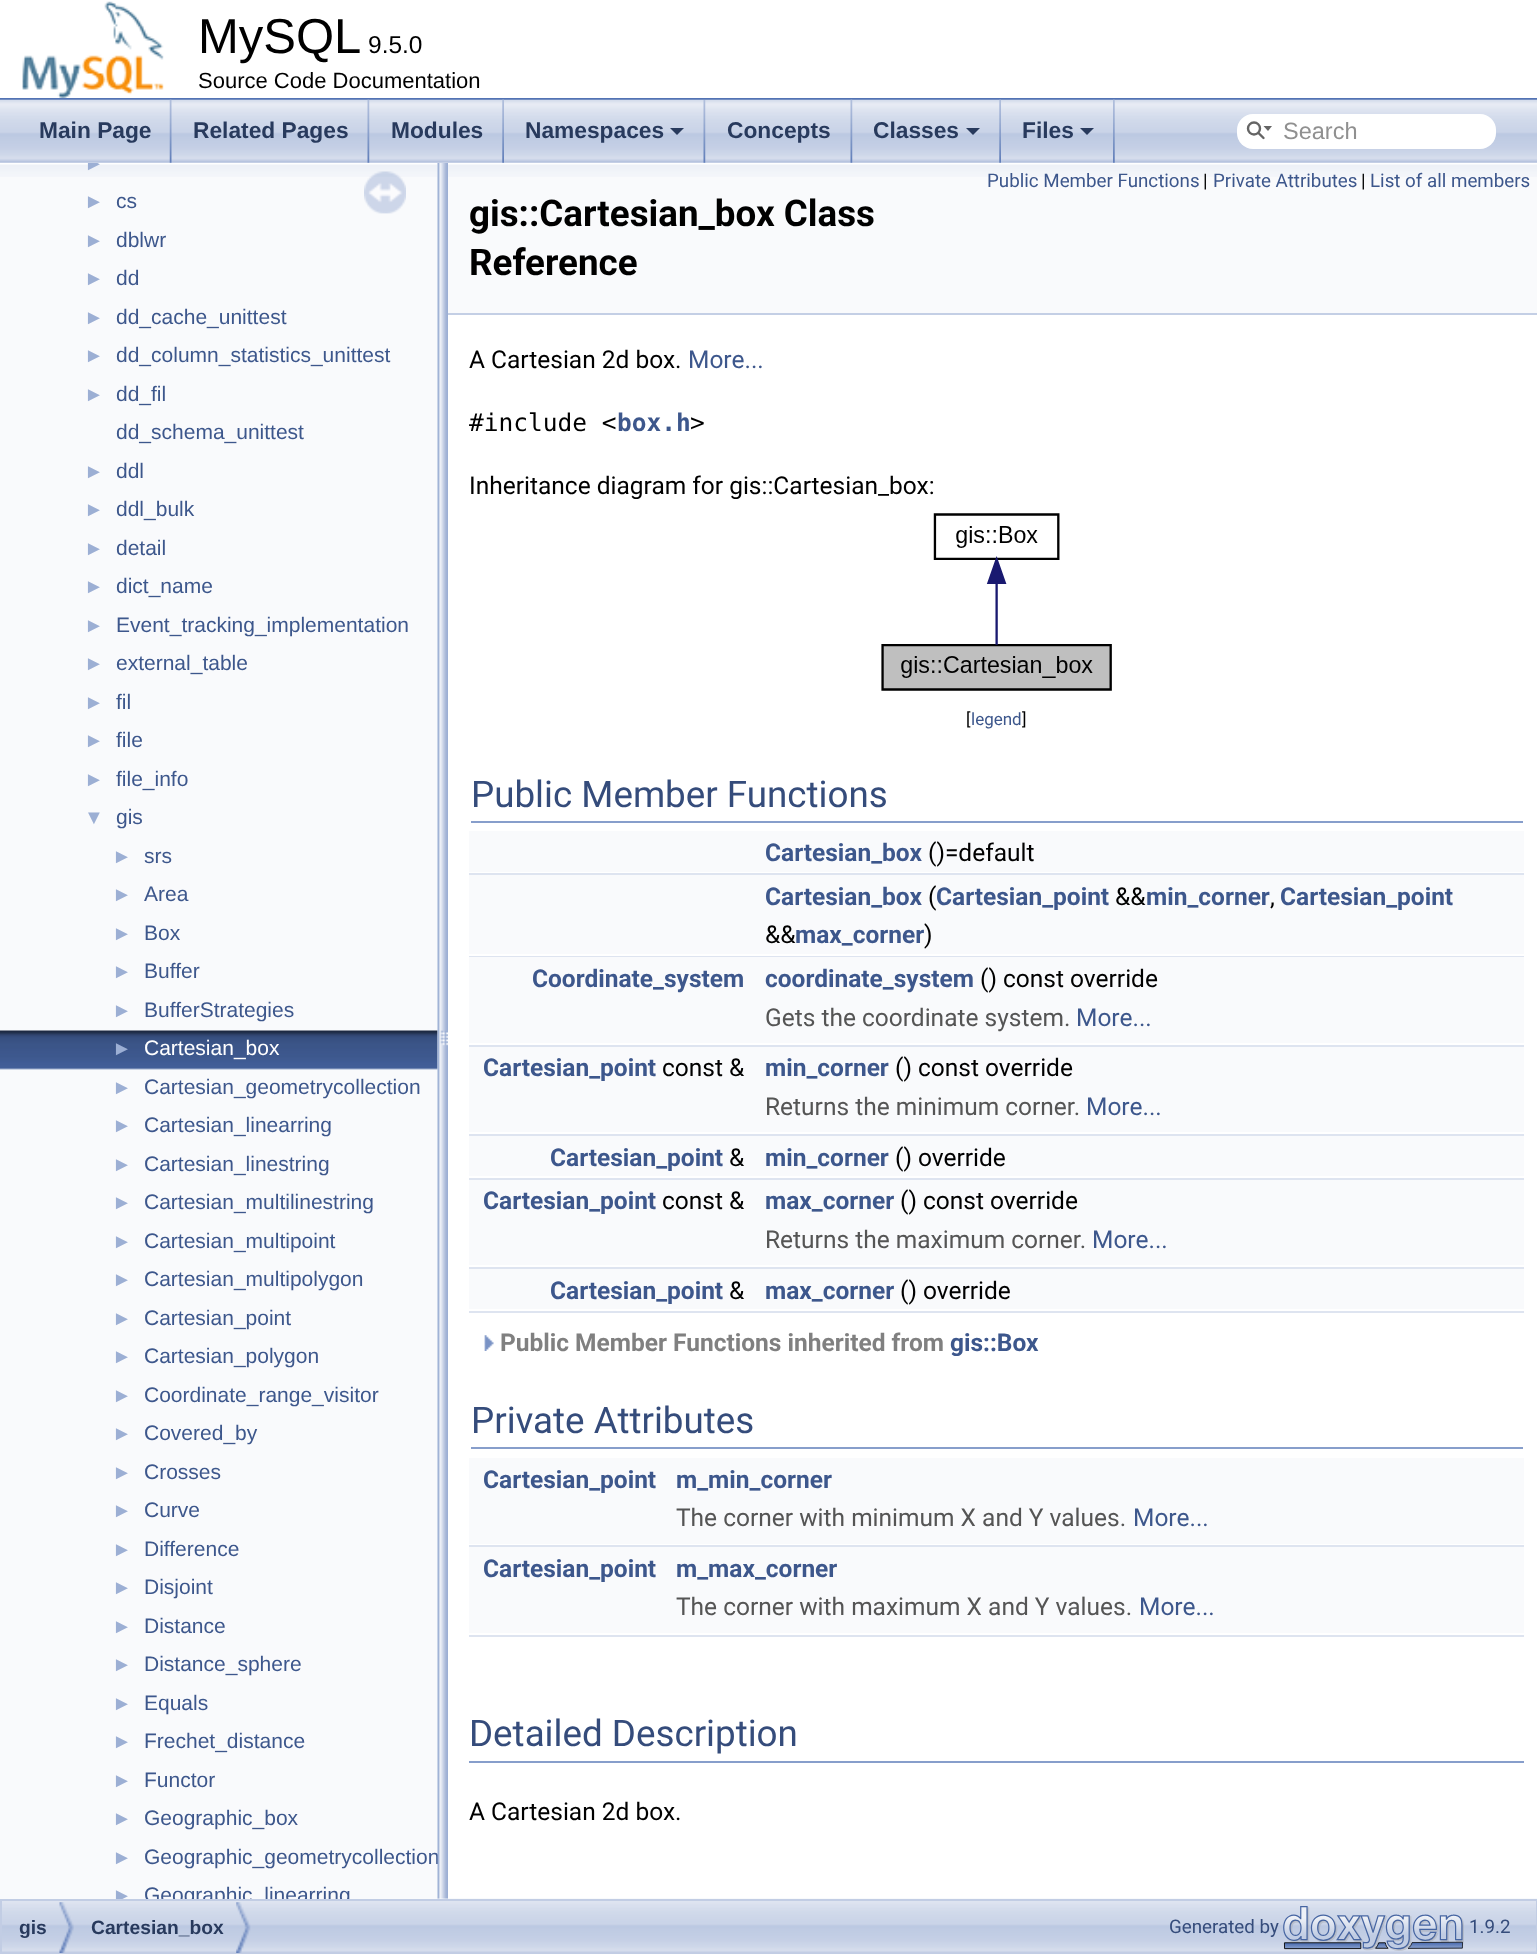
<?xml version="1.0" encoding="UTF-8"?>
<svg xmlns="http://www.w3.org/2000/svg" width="1537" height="1954">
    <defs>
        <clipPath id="clip1"><rect x="0" y="163" width="438" height="1736"/></clipPath>
    </defs>
    <rect width="100%" height="100%" fill="#FFFFFF"/>
    <rect x="0" y="98" width="1537" height="2" fill="#5373B4"/>
    <image x="22" y="1" width="142" height="97" href="img_01.png"/>
    <text x="198" y="53" font-family="Liberation Sans" font-size="49" fill="#000000">MySQL</text>
    <text x="368" y="53" font-family="Liberation Sans" font-size="24.5" fill="#000000">9.5.0</text>
    <text x="198" y="88" font-family="Liberation Sans" font-size="22" fill="#000000">Source Code Documentation</text>
    <image x="2" y="1898" width="1535" height="55" href="img_15.png"/>
    <rect x="0" y="163" width="438" height="1736" fill="#F9FAFC"/>
    <image x="0" y="163" width="438" height="14" href="img_08.png"/>
    <image x="0" y="1030" width="438" height="40" href="img_09.png"/>
    <text x="144" y="1864" font-family="Liberation Sans" font-size="21" fill="#3D578C">Geographic_geometrycollection</text>
    <image x="437" y="162" width="11" height="1737" href="img_11.png"/>
    <image x="0" y="99" width="1537" height="64" href="img_02.png"/>
    <image x="169" y="99" width="3" height="64" href="img_03.png"/>
    <text x="39" y="138" font-family="Liberation Sans" font-size="22.75" font-weight="700" fill="#283A5D">Main Page</text>
    <image x="367" y="99" width="3" height="64" href="img_04.png"/>
    <text x="193" y="138" font-family="Liberation Sans" font-size="22.75" font-weight="700" fill="#283A5D">Related Pages</text>
    <image x="502" y="99" width="2" height="64" href="img_05.png"/>
    <text x="391" y="138" font-family="Liberation Sans" font-size="22.75" font-weight="700" fill="#283A5D">Modules</text>
    <image x="703" y="100" width="3" height="63" href="img_06.png"/>
    <text x="525" y="138" font-family="Liberation Sans" font-size="22.75" font-weight="700" fill="#283A5D">Namespaces</text>
    <path d="M 670 128 H 684 L 677 135 Z" fill="#283A5D"/>
    <image x="850" y="99" width="3" height="64" href="img_04.png"/>
    <text x="727" y="138" font-family="Liberation Sans" font-size="22.75" font-weight="700" fill="#283A5D">Concepts</text>
    <image x="999" y="99" width="2" height="64" href="img_05.png"/>
    <text x="873" y="138" font-family="Liberation Sans" font-size="22.75" font-weight="700" fill="#283A5D">Classes</text>
    <path d="M 966 128 H 980 L 973 135 Z" fill="#283A5D"/>
    <image x="1113" y="99" width="2" height="64" href="img_07.png"/>
    <text x="1022" y="138" font-family="Liberation Sans" font-size="22.75" font-weight="700" fill="#283A5D">Files</text>
    <path d="M 1080 128 H 1094 L 1087 135 Z" fill="#283A5D"/>
    <rect x="1237" y="114" width="259" height="35" rx="16" fill="#FFFFFF"/>
    <circle cx="1254" cy="128.5" r="6" fill="none" stroke="#656565" stroke-width="2.4"/>
    <path d="M 1263.5 126 L 1268 131 L 1272 126 Z" fill="#656565"/>
    <path d="M 1258.5 133 L 1263.5 138" fill="none" stroke="#656565" stroke-width="2.4" stroke-linecap="round"/>
    <text x="1283" y="139" font-family="Liberation Sans" font-size="23.5" fill="#909090">Search</text>
    <g clip-path="url(#clip1)">
        <text x="84" y="170" font-family="Liberation Sans" font-size="20" fill="#9CAFD4">►</text>
    </g>
    <text x="84" y="208" font-family="Liberation Sans" font-size="20" fill="#9CAFD4">►</text>
    <text x="116" y="208" font-family="Liberation Sans" font-size="21" fill="#3D578C">cs</text>
    <text x="84" y="247" font-family="Liberation Sans" font-size="20" fill="#9CAFD4">►</text>
    <text x="116" y="247" font-family="Liberation Sans" font-size="21" fill="#3D578C">dblwr</text>
    <text x="84" y="285" font-family="Liberation Sans" font-size="20" fill="#9CAFD4">►</text>
    <text x="116" y="285" font-family="Liberation Sans" font-size="21" fill="#3D578C">dd</text>
    <text x="84" y="324" font-family="Liberation Sans" font-size="20" fill="#9CAFD4">►</text>
    <text x="116" y="324" font-family="Liberation Sans" font-size="21" fill="#3D578C">dd_cache_unittest</text>
    <text x="84" y="362" font-family="Liberation Sans" font-size="20" fill="#9CAFD4">►</text>
    <text x="116" y="362" font-family="Liberation Sans" font-size="21" fill="#3D578C">dd_column_statistics_unittest</text>
    <text x="84" y="401" font-family="Liberation Sans" font-size="20" fill="#9CAFD4">►</text>
    <text font-family="Liberation Sans" font-size="21" fill="#3D578C">
        <tspan x="116" y="401">dd_fil</tspan>
        <tspan x="116" y="439">dd_schema_unittest</tspan>
    </text>
    <text x="84" y="478" font-family="Liberation Sans" font-size="20" fill="#9CAFD4">►</text>
    <text x="116" y="478" font-family="Liberation Sans" font-size="21" fill="#3D578C">ddl</text>
    <text x="84" y="516" font-family="Liberation Sans" font-size="20" fill="#9CAFD4">►</text>
    <text x="116" y="516" font-family="Liberation Sans" font-size="21" fill="#3D578C">ddl_bulk</text>
    <text x="84" y="555" font-family="Liberation Sans" font-size="20" fill="#9CAFD4">►</text>
    <text x="116" y="555" font-family="Liberation Sans" font-size="21" fill="#3D578C">detail</text>
    <text x="84" y="593" font-family="Liberation Sans" font-size="20" fill="#9CAFD4">►</text>
    <text x="116" y="593" font-family="Liberation Sans" font-size="21" fill="#3D578C">dict_name</text>
    <text x="84" y="632" font-family="Liberation Sans" font-size="20" fill="#9CAFD4">►</text>
    <text x="116" y="632" font-family="Liberation Sans" font-size="21" fill="#3D578C">Event_tracking_implementation</text>
    <text x="84" y="670" font-family="Liberation Sans" font-size="20" fill="#9CAFD4">►</text>
    <text x="116" y="670" font-family="Liberation Sans" font-size="21" fill="#3D578C">external_table</text>
    <text x="84" y="709" font-family="Liberation Sans" font-size="20" fill="#9CAFD4">►</text>
    <text x="116" y="709" font-family="Liberation Sans" font-size="21" fill="#3D578C">fil</text>
    <text x="84" y="747" font-family="Liberation Sans" font-size="20" fill="#9CAFD4">►</text>
    <text x="116" y="747" font-family="Liberation Sans" font-size="21" fill="#3D578C">file</text>
    <text x="84" y="786" font-family="Liberation Sans" font-size="20" fill="#9CAFD4">►</text>
    <text x="116" y="786" font-family="Liberation Sans" font-size="21" fill="#3D578C">file_info</text>
    <text x="84" y="824" font-family="Liberation Sans" font-size="20" fill="#9CAFD4">▼</text>
    <text x="116" y="824" font-family="Liberation Sans" font-size="21" fill="#3D578C">gis</text>
    <text x="112" y="863" font-family="Liberation Sans" font-size="20" fill="#9CAFD4">►</text>
    <text x="144" y="863" font-family="Liberation Sans" font-size="21" fill="#3D578C">srs</text>
    <text x="112" y="901" font-family="Liberation Sans" font-size="20" fill="#9CAFD4">►</text>
    <text x="144" y="901" font-family="Liberation Sans" font-size="21" fill="#3D578C">Area</text>
    <text x="112" y="940" font-family="Liberation Sans" font-size="20" fill="#9CAFD4">►</text>
    <text x="144" y="940" font-family="Liberation Sans" font-size="21" fill="#3D578C">Box</text>
    <text x="112" y="978" font-family="Liberation Sans" font-size="20" fill="#9CAFD4">►</text>
    <text x="144" y="978" font-family="Liberation Sans" font-size="21" fill="#3D578C">Buffer</text>
    <text x="112" y="1017" font-family="Liberation Sans" font-size="20" fill="#9CAFD4">►</text>
    <text x="144" y="1017" font-family="Liberation Sans" font-size="21" fill="#3D578C">BufferStrategies</text>
    <text x="112" y="1055" font-family="Liberation Sans" font-size="20" fill="#9CAFD4">►</text>
    <text x="144" y="1055" font-family="Liberation Sans" font-size="21" fill="#FFFFFF">Cartesian_box</text>
    <text x="112" y="1094" font-family="Liberation Sans" font-size="20" fill="#9CAFD4">►</text>
    <text x="144" y="1094" font-family="Liberation Sans" font-size="21" fill="#3D578C">Cartesian_geometrycollection</text>
    <text x="112" y="1132" font-family="Liberation Sans" font-size="20" fill="#9CAFD4">►</text>
    <text x="144" y="1132" font-family="Liberation Sans" font-size="21" fill="#3D578C">Cartesian_linearring</text>
    <text x="112" y="1171" font-family="Liberation Sans" font-size="20" fill="#9CAFD4">►</text>
    <text x="144" y="1171" font-family="Liberation Sans" font-size="21" fill="#3D578C">Cartesian_linestring</text>
    <text x="112" y="1209" font-family="Liberation Sans" font-size="20" fill="#9CAFD4">►</text>
    <text x="144" y="1209" font-family="Liberation Sans" font-size="21" fill="#3D578C">Cartesian_multilinestring</text>
    <text x="112" y="1248" font-family="Liberation Sans" font-size="20" fill="#9CAFD4">►</text>
    <text x="144" y="1248" font-family="Liberation Sans" font-size="21" fill="#3D578C">Cartesian_multipoint</text>
    <text x="112" y="1286" font-family="Liberation Sans" font-size="20" fill="#9CAFD4">►</text>
    <text x="144" y="1286" font-family="Liberation Sans" font-size="21" fill="#3D578C">Cartesian_multipolygon</text>
    <text x="112" y="1325" font-family="Liberation Sans" font-size="20" fill="#9CAFD4">►</text>
    <text x="144" y="1325" font-family="Liberation Sans" font-size="21" fill="#3D578C">Cartesian_point</text>
    <text x="112" y="1363" font-family="Liberation Sans" font-size="20" fill="#9CAFD4">►</text>
    <text x="144" y="1363" font-family="Liberation Sans" font-size="21" fill="#3D578C">Cartesian_polygon</text>
    <text x="112" y="1402" font-family="Liberation Sans" font-size="20" fill="#9CAFD4">►</text>
    <text x="144" y="1402" font-family="Liberation Sans" font-size="21" fill="#3D578C">Coordinate_range_visitor</text>
    <text x="112" y="1440" font-family="Liberation Sans" font-size="20" fill="#9CAFD4">►</text>
    <text x="144" y="1440" font-family="Liberation Sans" font-size="21" fill="#3D578C">Covered_by</text>
    <text x="112" y="1479" font-family="Liberation Sans" font-size="20" fill="#9CAFD4">►</text>
    <text x="144" y="1479" font-family="Liberation Sans" font-size="21" fill="#3D578C">Crosses</text>
    <text x="112" y="1517" font-family="Liberation Sans" font-size="20" fill="#9CAFD4">►</text>
    <text x="144" y="1517" font-family="Liberation Sans" font-size="21" fill="#3D578C">Curve</text>
    <text x="112" y="1556" font-family="Liberation Sans" font-size="20" fill="#9CAFD4">►</text>
    <text x="144" y="1556" font-family="Liberation Sans" font-size="21" fill="#3D578C">Difference</text>
    <text x="112" y="1594" font-family="Liberation Sans" font-size="20" fill="#9CAFD4">►</text>
    <text x="144" y="1594" font-family="Liberation Sans" font-size="21" fill="#3D578C">Disjoint</text>
    <text x="112" y="1633" font-family="Liberation Sans" font-size="20" fill="#9CAFD4">►</text>
    <text x="144" y="1633" font-family="Liberation Sans" font-size="21" fill="#3D578C">Distance</text>
    <text x="112" y="1671" font-family="Liberation Sans" font-size="20" fill="#9CAFD4">►</text>
    <text x="144" y="1671" font-family="Liberation Sans" font-size="21" fill="#3D578C">Distance_sphere</text>
    <text x="112" y="1710" font-family="Liberation Sans" font-size="20" fill="#9CAFD4">►</text>
    <text x="144" y="1710" font-family="Liberation Sans" font-size="21" fill="#3D578C">Equals</text>
    <text x="112" y="1748" font-family="Liberation Sans" font-size="20" fill="#9CAFD4">►</text>
    <text x="144" y="1748" font-family="Liberation Sans" font-size="21" fill="#3D578C">Frechet_distance</text>
    <text x="112" y="1787" font-family="Liberation Sans" font-size="20" fill="#9CAFD4">►</text>
    <text x="144" y="1787" font-family="Liberation Sans" font-size="21" fill="#3D578C">Functor</text>
    <text x="112" y="1825" font-family="Liberation Sans" font-size="20" fill="#9CAFD4">►</text>
    <text x="144" y="1825" font-family="Liberation Sans" font-size="21" fill="#3D578C">Geographic_box</text>
    <text x="112" y="1864" font-family="Liberation Sans" font-size="20" fill="#9CAFD4">►</text>
    <g clip-path="url(#clip1)">
        <text x="112" y="1902" font-family="Liberation Sans" font-size="20" fill="#9CAFD4">►</text>
        <text x="144" y="1902" font-family="Liberation Sans" font-size="21" fill="#3D578C">Geographic_linearring</text>
    </g>
    <image x="364" y="171" width="42" height="43" href="img_10.png"/>
    <rect x="448" y="177" width="1089" height="136" fill="#F9FAFC"/>
    <image x="448" y="163" width="1089" height="14" href="img_12.png"/>
    <rect x="448" y="313" width="1089" height="2" fill="#C4CFE5"/>
    <text x="987" y="187" font-family="Roboto" font-size="18.75" fill="#3D578C">Public Member Functions</text>
    <text x="1203" y="187" font-family="Roboto" font-size="18.75" fill="#000000">|</text>
    <text x="1213" y="187" font-family="Roboto" font-size="18.75" fill="#3D578C">Private Attributes</text>
    <text x="1361" y="187" font-family="Roboto" font-size="18.75" fill="#000000">|</text>
    <text x="1370" y="187" font-family="Roboto" font-size="18.75" fill="#3D578C">List of all members</text>
    <text font-family="Roboto" font-size="36.75" font-weight="700" fill="#000000">
        <tspan x="469" y="226">gis::Cartesian_box Class</tspan>
        <tspan x="469" y="275">Reference</tspan>
    </text>
    <text x="469" y="368" font-family="Roboto" font-size="24.5" fill="#000000">A Cartesian 2d box.</text>
    <text x="688" y="368" font-family="Roboto" font-size="24.5" fill="#3D578C">More...</text>
    <text x="469" y="431" font-family="DejaVu Sans Mono" font-size="24.5" fill="#000000">#include &lt;</text>
    <text x="617" y="431" font-family="DejaVu Sans Mono" font-size="24.5" font-weight="700" fill="#3D578C">box.h</text>
    <text x="690" y="431" font-family="DejaVu Sans Mono" font-size="24.5" fill="#000000">&gt;</text>
    <text x="469" y="494" font-family="Roboto" font-size="24.5" fill="#000000">Inheritance diagram for gis::Cartesian_box:</text>
    <image x="881" y="513" width="231" height="178" href="img_13.png"/>
    <text x="966" y="725" font-family="Roboto" font-size="17" fill="#000000">[</text>
    <text x="971" y="725" font-family="Roboto" font-size="17" fill="#3D578C">legend</text>
    <text x="1022" y="725" font-family="Roboto" font-size="17" fill="#000000">]</text>
    <rect x="471" y="821" width="1052" height="2" fill="#879ECB"/>
    <text x="471" y="807" font-family="Roboto" font-size="36.75" fill="#354C7B">Public Member Functions</text>
    <rect x="469" y="831" width="1055" height="41" fill="#F9FAFC"/>
    <text x="765" y="861" font-family="Roboto" font-size="24.5" font-weight="700" fill="#3D578C">Cartesian_box</text>
    <text x="928" y="861" font-family="Roboto" font-size="24.5" fill="#000000">()=default</text>
    <rect x="469" y="873" width="1055" height="2" fill="#DEE4F0"/>
    <rect x="469" y="875" width="1055" height="79" fill="#F9FAFC"/>
    <text x="765" y="905" font-family="Roboto" font-size="24.5" font-weight="700" fill="#3D578C">Cartesian_box</text>
    <text x="928" y="905" font-family="Roboto" font-size="24.5" fill="#000000">(</text>
    <text x="936" y="905" font-family="Roboto" font-size="24.5" font-weight="700" fill="#3D578C">Cartesian_point</text>
    <text x="1115" y="905" font-family="Roboto" font-size="24.5" fill="#000000">&amp;&amp;</text>
    <text x="1146" y="905" font-family="Roboto" font-size="24.5" font-weight="700" fill="#3D578C">min_corner</text>
    <text x="1270" y="905" font-family="Roboto" font-size="24.5" fill="#000000">,</text>
    <text x="1280" y="905" font-family="Roboto" font-size="24.5" font-weight="700" fill="#3D578C">Cartesian_point</text>
    <text x="765" y="943" font-family="Roboto" font-size="24.5" fill="#000000">&amp;&amp;</text>
    <text x="795" y="943" font-family="Roboto" font-size="24.5" font-weight="700" fill="#3D578C">max_corner</text>
    <text x="924" y="943" font-family="Roboto" font-size="24.5" fill="#000000">)</text>
    <rect x="469" y="956" width="1055" height="1" fill="#DEE4F0"/>
    <rect x="469" y="957" width="1055" height="41" fill="#F9FAFC"/>
    <text x="532" y="987" font-family="Roboto" font-size="24.5" font-weight="700" fill="#3D578C">Coordinate_system</text>
    <text x="765" y="987" font-family="Roboto" font-size="24.5" font-weight="700" fill="#3D578C">coordinate_system</text>
    <text x="980" y="987" font-family="Roboto" font-size="24.5" fill="#000000">() const override</text>
    <rect x="469" y="998" width="1055" height="45" fill="#F9FAFC"/>
    <text x="765" y="1026" font-family="Roboto" font-size="24.5" fill="#555555">Gets the coordinate system.</text>
    <text x="1076" y="1026" font-family="Roboto" font-size="24.5" fill="#3D578C">More...</text>
    <rect x="469" y="1045" width="1055" height="2" fill="#DEE4F0"/>
    <rect x="469" y="1047" width="1055" height="40" fill="#F9FAFC"/>
    <text x="483" y="1076" font-family="Roboto" font-size="24.5" font-weight="700" fill="#3D578C">Cartesian_point</text>
    <text x="662" y="1076" font-family="Roboto" font-size="24.5" fill="#000000">const &amp;</text>
    <text x="765" y="1076" font-family="Roboto" font-size="24.5" font-weight="700" fill="#3D578C">min_corner</text>
    <text x="895" y="1076" font-family="Roboto" font-size="24.5" fill="#000000">() const override</text>
    <rect x="469" y="1087" width="1055" height="45" fill="#F9FAFC"/>
    <text x="765" y="1115" font-family="Roboto" font-size="24.5" fill="#555555">Returns the minimum corner.</text>
    <text x="1086" y="1115" font-family="Roboto" font-size="24.5" fill="#3D578C">More...</text>
    <rect x="469" y="1134" width="1055" height="2" fill="#DEE4F0"/>
    <rect x="469" y="1136" width="1055" height="40" fill="#F9FAFC"/>
    <text x="550" y="1166" font-family="Roboto" font-size="24.5" font-weight="700" fill="#3D578C">Cartesian_point</text>
    <text x="729" y="1166" font-family="Roboto" font-size="24.5" fill="#000000">&amp;</text>
    <text x="765" y="1166" font-family="Roboto" font-size="24.5" font-weight="700" fill="#3D578C">min_corner</text>
    <text x="895" y="1166" font-family="Roboto" font-size="24.5" fill="#000000">() override</text>
    <rect x="469" y="1178" width="1055" height="2" fill="#DEE4F0"/>
    <rect x="469" y="1180" width="1055" height="40" fill="#F9FAFC"/>
    <text x="483" y="1209" font-family="Roboto" font-size="24.5" font-weight="700" fill="#3D578C">Cartesian_point</text>
    <text x="662" y="1209" font-family="Roboto" font-size="24.5" fill="#000000">const &amp;</text>
    <text x="765" y="1209" font-family="Roboto" font-size="24.5" font-weight="700" fill="#3D578C">max_corner</text>
    <text x="900" y="1209" font-family="Roboto" font-size="24.5" fill="#000000">() const override</text>
    <rect x="469" y="1220" width="1055" height="45" fill="#F9FAFC"/>
    <text x="765" y="1248" font-family="Roboto" font-size="24.5" fill="#555555">Returns the maximum corner.</text>
    <text x="1092" y="1248" font-family="Roboto" font-size="24.5" fill="#3D578C">More...</text>
    <rect x="469" y="1267" width="1055" height="2" fill="#DEE4F0"/>
    <rect x="469" y="1269" width="1055" height="40" fill="#F9FAFC"/>
    <text x="550" y="1299" font-family="Roboto" font-size="24.5" font-weight="700" fill="#3D578C">Cartesian_point</text>
    <text x="729" y="1299" font-family="Roboto" font-size="24.5" fill="#000000">&amp;</text>
    <text x="765" y="1299" font-family="Roboto" font-size="24.5" font-weight="700" fill="#3D578C">max_corner</text>
    <text x="900" y="1299" font-family="Roboto" font-size="24.5" fill="#000000">() override</text>
    <rect x="469" y="1311" width="1055" height="2" fill="#DEE4F0"/>
    <image x="484" y="1335" width="10" height="16" href="img_14.png"/>
    <text x="500" y="1351" font-family="Roboto" font-size="24.5" font-weight="700" fill="#808080">Public Member Functions inherited from</text>
    <text x="950" y="1351" font-family="Roboto" font-size="24.5" font-weight="700" fill="#3D578C">gis::Box</text>
    <rect x="471" y="1447" width="1052" height="2" fill="#879ECB"/>
    <text x="471" y="1433" font-family="Roboto" font-size="36.75" fill="#354C7B">Private Attributes</text>
    <rect x="469" y="1458" width="1055" height="40" fill="#F9FAFC"/>
    <text x="483" y="1488" font-family="Roboto" font-size="24.5" font-weight="700" fill="#3D578C">Cartesian_point</text>
    <text x="676" y="1488" font-family="Roboto" font-size="24.5" font-weight="700" fill="#3D578C">m_min_corner</text>
    <rect x="469" y="1498" width="1055" height="46" fill="#F9FAFC"/>
    <text x="676" y="1526" font-family="Roboto" font-size="24.5" fill="#555555">The corner with minimum X and Y values.</text>
    <text x="1133" y="1526" font-family="Roboto" font-size="24.5" fill="#3D578C">More...</text>
    <rect x="469" y="1545" width="1055" height="2" fill="#DEE4F0"/>
    <rect x="469" y="1547" width="1055" height="40" fill="#F9FAFC"/>
    <text x="483" y="1577" font-family="Roboto" font-size="24.5" font-weight="700" fill="#3D578C">Cartesian_point</text>
    <text x="676" y="1577" font-family="Roboto" font-size="24.5" font-weight="700" fill="#3D578C">m_max_corner</text>
    <rect x="469" y="1587" width="1055" height="46" fill="#F9FAFC"/>
    <text x="676" y="1615" font-family="Roboto" font-size="24.5" fill="#555555">The corner with maximum X and Y values.</text>
    <text x="1139" y="1615" font-family="Roboto" font-size="24.5" fill="#3D578C">More...</text>
    <rect x="469" y="1635" width="1055" height="2" fill="#DEE4F0"/>
    <rect x="469" y="1761" width="1055" height="2" fill="#879ECB"/>
    <text x="469" y="1746" font-family="Roboto" font-size="36.75" fill="#354C7B">Detailed Description</text>
    <text x="469" y="1820" font-family="Roboto" font-size="24.5" fill="#000000">A Cartesian 2d box.</text>
    <rect x="1" y="1900" width="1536" height="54" fill="none" stroke="#C2CDE4" stroke-width="2"/>
    <image x="59" y="1902" width="15" height="51" href="img_16.png"/>
    <text x="19" y="1934" font-family="Liberation Sans" font-size="19.25" font-weight="700" fill="#283A5D">gis</text>
    <image x="236" y="1902" width="15" height="51" href="img_17.png"/>
    <text x="91" y="1934" font-family="Liberation Sans" font-size="19.25" font-weight="700" fill="#283A5D">Cartesian_box</text>
    <text x="1169" y="1933" font-family="Roboto" font-size="18.75" fill="#354C7B">Generated by</text>
    <image x="1283" y="1906" width="181" height="45" href="img_18.png"/>
    <text x="1469" y="1933" font-family="Roboto" font-size="18.75" fill="#354C7B">1.9.2</text>
</svg>
